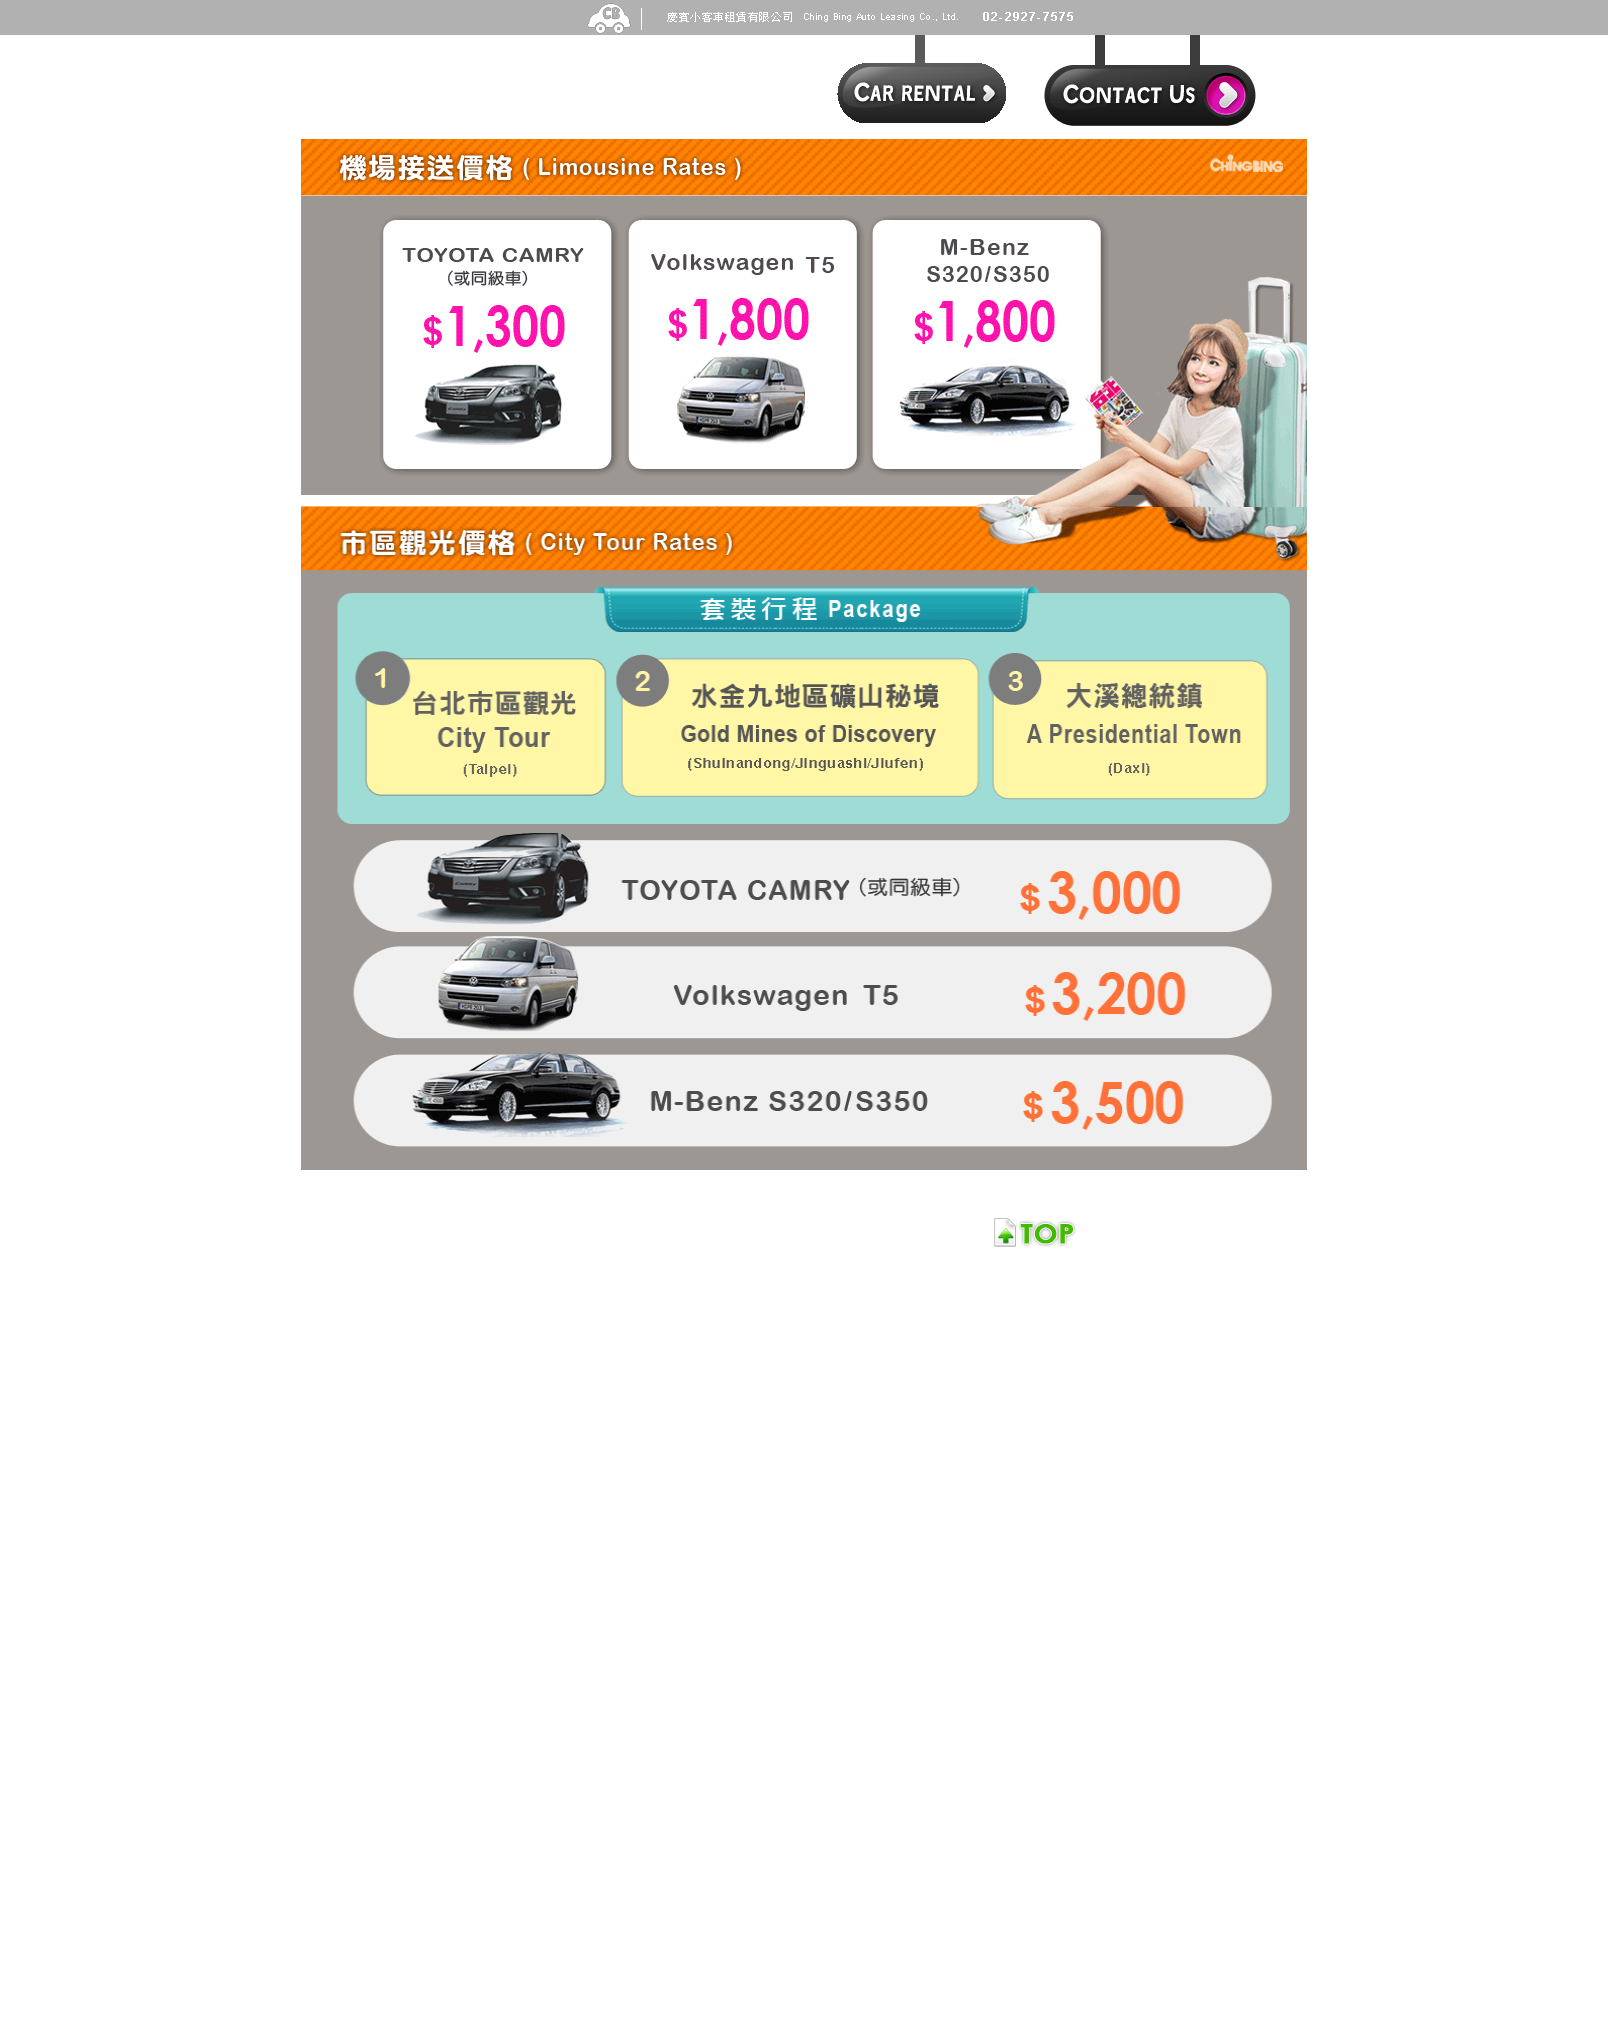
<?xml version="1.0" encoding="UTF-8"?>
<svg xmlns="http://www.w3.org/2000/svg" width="1608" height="2023">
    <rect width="100%" height="100%" fill="#FFFFFF"/>
    <rect x="0" y="0" width="1608" height="35" fill="#B1B1B1"/>
    <image x="587" y="3" width="486" height="31" href="img_01.png"/>
    <image x="837" y="35" width="169" height="88" href="img_02.png"/>
    <image x="1044" y="35" width="212" height="91" href="img_03.png"/>
    <image x="301" y="139" width="1006" height="368" href="img_04.png"/>
    <image x="301" y="507" width="1006" height="663" href="img_05.png"/>
    <image x="994" y="1218" width="82" height="29" href="img_06.png"/>
</svg>
